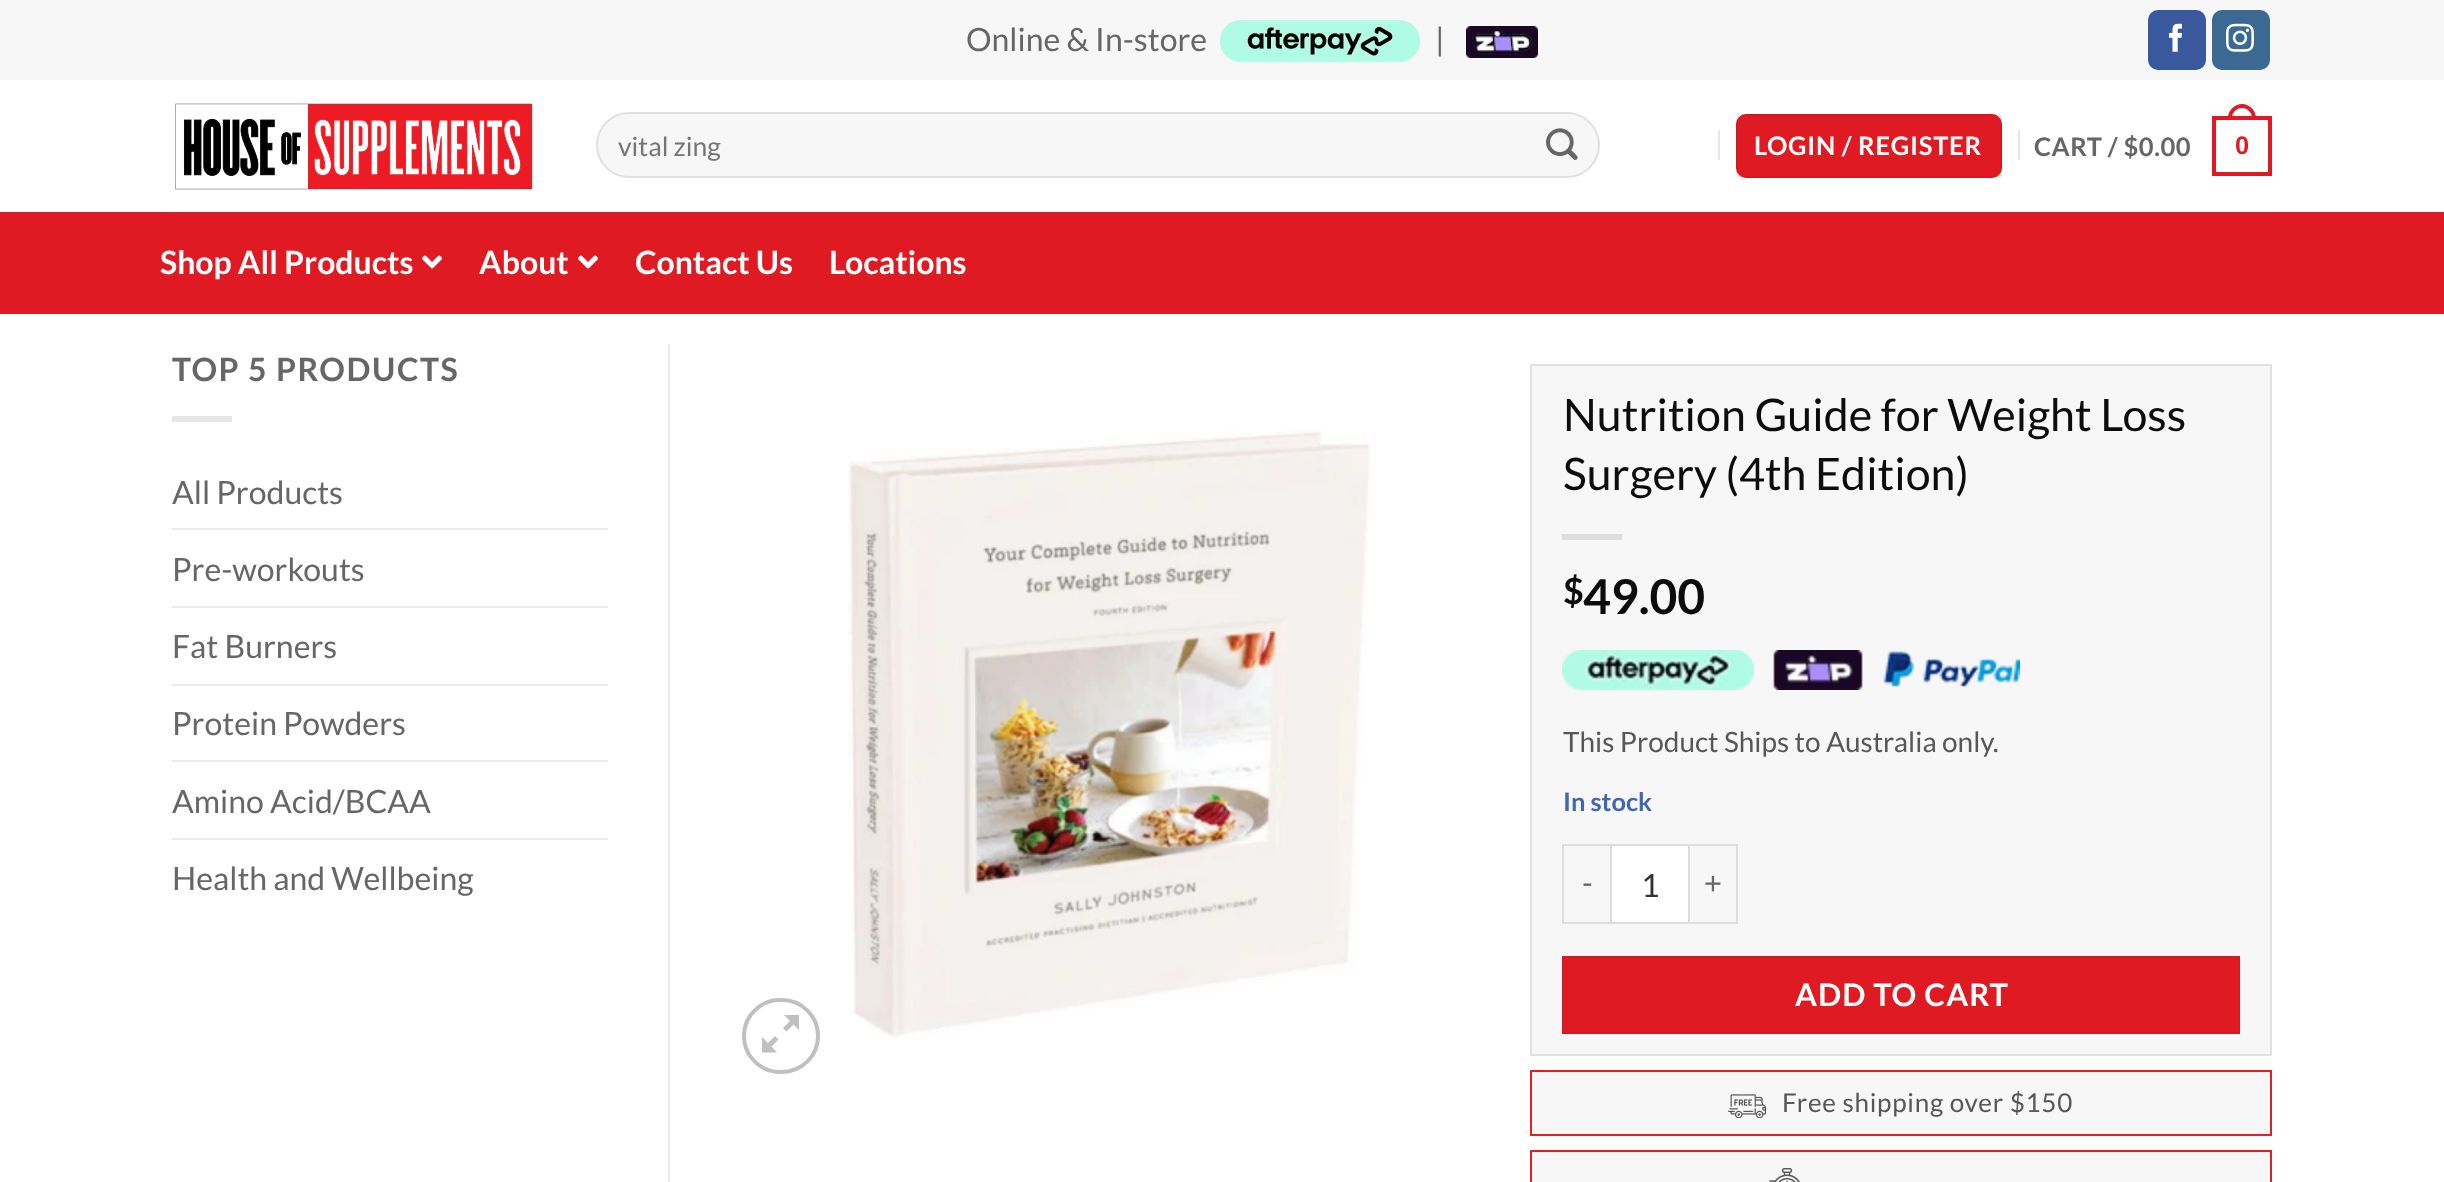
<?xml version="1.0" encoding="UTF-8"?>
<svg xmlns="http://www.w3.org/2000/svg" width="2444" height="1182">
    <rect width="100%" height="100%" fill="#FFFFFF"/>
    <rect x="0" y="0" width="2444" height="80" fill="#F7F7F7"/>
    <text x="966" y="51" font-family="Lato" font-size="32" fill="#666666">Online &amp; In-store</text>
    <image x="1220" y="20" width="200" height="42" href="img_01.png"/>
    <text x="1435" y="51" font-family="Lato" font-size="32" fill="#666666">|</text>
    <image x="1466" y="26" width="72" height="32" href="img_02.png"/>
    <rect x="2149" y="11" width="56" height="58" rx="9" fill="#3A589D" stroke="#3A589D" stroke-width="2"/>
    <image x="2169" y="23" width="14" height="29" href="img_03.png"/>
    <rect x="2213" y="11" width="56" height="58" rx="9" fill="#3B6994" stroke="#3B6994" stroke-width="2"/>
    <image x="2226" y="23" width="28" height="29" href="img_04.png"/>
    <image x="175" y="103" width="358" height="87" href="img_05.png"/>
    <rect x="596" y="112" width="1004" height="66" rx="33" fill="#F7F7F7"/>
    <rect x="597" y="113" width="1002" height="64" rx="32" fill="none" stroke="#000000" stroke-opacity="0.09" stroke-width="2"/>
    <text x="618" y="156" font-family="Lato" font-size="26.5" fill="#757575">vital zing</text>
    <image x="1546" y="128" width="32" height="32" href="img_06.png"/>
    <rect x="1718" y="130" width="2" height="30" fill="#E6E6E6"/>
    <rect x="1736" y="114" width="266" height="64" rx="10" fill="#E01A22"/>
    <rect x="1737" y="115" width="264" height="62" fill="none" stroke="#000000" stroke-opacity="0.05" stroke-width="2"/>
    <text x="1754" y="155" font-family="Lato" font-size="25.5" font-weight="700" letter-spacing="0.75" fill="#FFFFFF">LOGIN / REGISTER</text>
    <rect x="2018" y="130" width="2" height="30" fill="#E6E6E6"/>
    <text x="2034" y="156" font-family="Lato" font-size="25.5" font-weight="700" letter-spacing="0.5" fill="#666666">CART / $0.00</text>
    <rect x="2214" y="118" width="56" height="56" fill="none" stroke="#E01A22" stroke-width="4"/>
    <path d="M 2242 104 C 2249.5 104 2256 110.5 2256 118 V 120 H 2228 V 118 C 2228 110.5 2234.5 104 2242 104 Z M 2242 108 C 2247.5 108 2252 112.5 2252 118 V 120 H 2232 V 118 C 2232 112.5 2236.5 108 2242 108 Z" fill="#E01A22" fill-rule="evenodd"/>
    <text x="2235" y="154" font-family="Liberation Sans" font-size="25.5" font-weight="700" letter-spacing="0.5" fill="#E01A22">0</text>
    <rect x="0" y="212" width="2444" height="102" fill="#E01A22"/>
    <rect x="172" y="212" width="2100" height="2" fill="#D42229"/>
    <text x="160" y="274" font-family="Lato" font-size="32" font-weight="700" fill="#FFFFFF">Shop All Products</text>
    <image x="422" y="255" width="20" height="14" href="img_07.png"/>
    <text x="479" y="274" font-family="Lato" font-size="32" font-weight="700" fill="#FFFFFF">About</text>
    <image x="578" y="255" width="20" height="14" href="img_07.png"/>
    <text x="635" y="274" font-family="Lato" font-size="32" font-weight="700" fill="#FFFFFF">Contact Us</text>
    <text x="829" y="274" font-family="Lato" font-size="32" font-weight="700" fill="#FFFFFF">Locations</text>
    <text x="172" y="381" font-family="Lato" font-size="32" font-weight="700" letter-spacing="1.6" fill="#666666">TOP 5 PRODUCTS</text>
    <rect x="172" y="416" width="60" height="6" fill="#E6E6E6"/>
    <text x="172" y="504" font-family="Lato" font-size="32" fill="#666666">All Products</text>
    <rect x="172" y="528" width="436" height="2" fill="#ECECEC"/>
    <text x="172" y="581" font-family="Lato" font-size="32" fill="#666666">Pre-workouts</text>
    <rect x="172" y="606" width="436" height="2" fill="#ECECEC"/>
    <text x="172" y="658" font-family="Lato" font-size="32" fill="#666666">Fat Burners</text>
    <rect x="172" y="684" width="436" height="2" fill="#ECECEC"/>
    <text x="172" y="735" font-family="Lato" font-size="32" fill="#666666">Protein Powders</text>
    <rect x="172" y="760" width="436" height="2" fill="#ECECEC"/>
    <text x="172" y="813" font-family="Lato" font-size="32" fill="#666666">Amino Acid/BCAA</text>
    <rect x="172" y="838" width="436" height="2" fill="#ECECEC"/>
    <text x="172" y="890" font-family="Lato" font-size="32" fill="#666666">Health and Wellbeing</text>
    <rect x="668" y="344" width="2" height="838" fill="#ECECEC"/>
    <rect x="744" y="1000" width="74" height="72" rx="36" fill="none" stroke="#C0C0C0" stroke-width="4"/>
    <path d="M 799 1015 V 1030 L 793.5 1024.5 L 786.5 1031.5 L 783 1028 L 790 1021 L 784 1015 Z M 778.5 1039.5 L 771.5 1046.5 L 777 1052.5 H 762 V 1037 L 768 1043 L 775 1036 Z" fill="#C0C0C0"/>
    <image x="848" y="429" width="523" height="609" href="img_08.png"/>
    <rect x="1531" y="365" width="740" height="690" fill="#F7F7F7" stroke="#E1E1E1" stroke-width="2"/>
    <text font-family="Lato" font-size="44.75" fill="#0C0C0C">
        <tspan x="1563" y="431">Nutrition Guide for Weight Loss</tspan>
        <tspan x="1563" y="490">Surgery (4th Edition)</tspan>
    </text>
    <rect x="1562" y="534" width="60" height="6" fill="#DEDEDE"/>
    <text x="1563" y="604" font-family="Lato" font-size="36" font-weight="700" fill="#0C0C0C">$</text>
    <text x="1583" y="614" font-family="Lato" font-size="48" font-weight="700" fill="#0C0C0C">49.00</text>
    <image x="1562" y="650" width="458" height="40" href="img_09.png"/>
    <text x="1563" y="752" font-family="Lato" font-size="28" fill="#575757">This Product Ships to Australia only.</text>
    <text x="1563" y="811" font-family="Lato" font-size="25.5" font-weight="700" fill="#4267B2">In stock</text>
    <rect x="1562" y="844" width="48" height="2" fill="#DDDDDD"/>
    <rect x="1562" y="922" width="48" height="2" fill="#DDDDDD"/>
    <rect x="1562" y="844" width="2" height="80" fill="#DDDDDD"/>
    <text x="1582" y="894" font-family="Lato" font-size="31" letter-spacing="1" fill="#666666">-</text>
    <rect x="1611" y="845" width="78" height="78" fill="#FFFFFF" stroke="#DDDDDD" stroke-width="2"/>
    <text x="1641" y="897" font-family="Lato" font-size="32" fill="#333333">1</text>
    <rect x="1690" y="844" width="48" height="2" fill="#DDDDDD"/>
    <rect x="1736" y="844" width="2" height="80" fill="#DDDDDD"/>
    <rect x="1690" y="922" width="48" height="2" fill="#DDDDDD"/>
    <text x="1704" y="894" font-family="Lato" font-size="31" letter-spacing="1" fill="#666666">+</text>
    <rect x="1563" y="957" width="676" height="76" fill="#E01A22" stroke="#D51920" stroke-width="2"/>
    <text x="1795" y="1006" font-family="Lato" font-size="31" font-weight="700" letter-spacing="1" fill="#FFFFFF">ADD TO CART</text>
    <rect x="1531" y="1071" width="740" height="64" fill="#F7F7F7" stroke="#E01F26" stroke-width="2"/>
    <image x="1728" y="1094" width="38" height="24" href="img_10.png"/>
    <text x="1782" y="1112" font-family="Lato" font-size="26" letter-spacing="0.75" fill="#575757">Free shipping over $150</text>
    <rect x="1531" y="1151" width="740" height="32" fill="#F7F7F7" stroke="#E01F26" stroke-width="2"/>
    <image x="1769" y="1168" width="31" height="14" href="img_11.png"/>
</svg>
